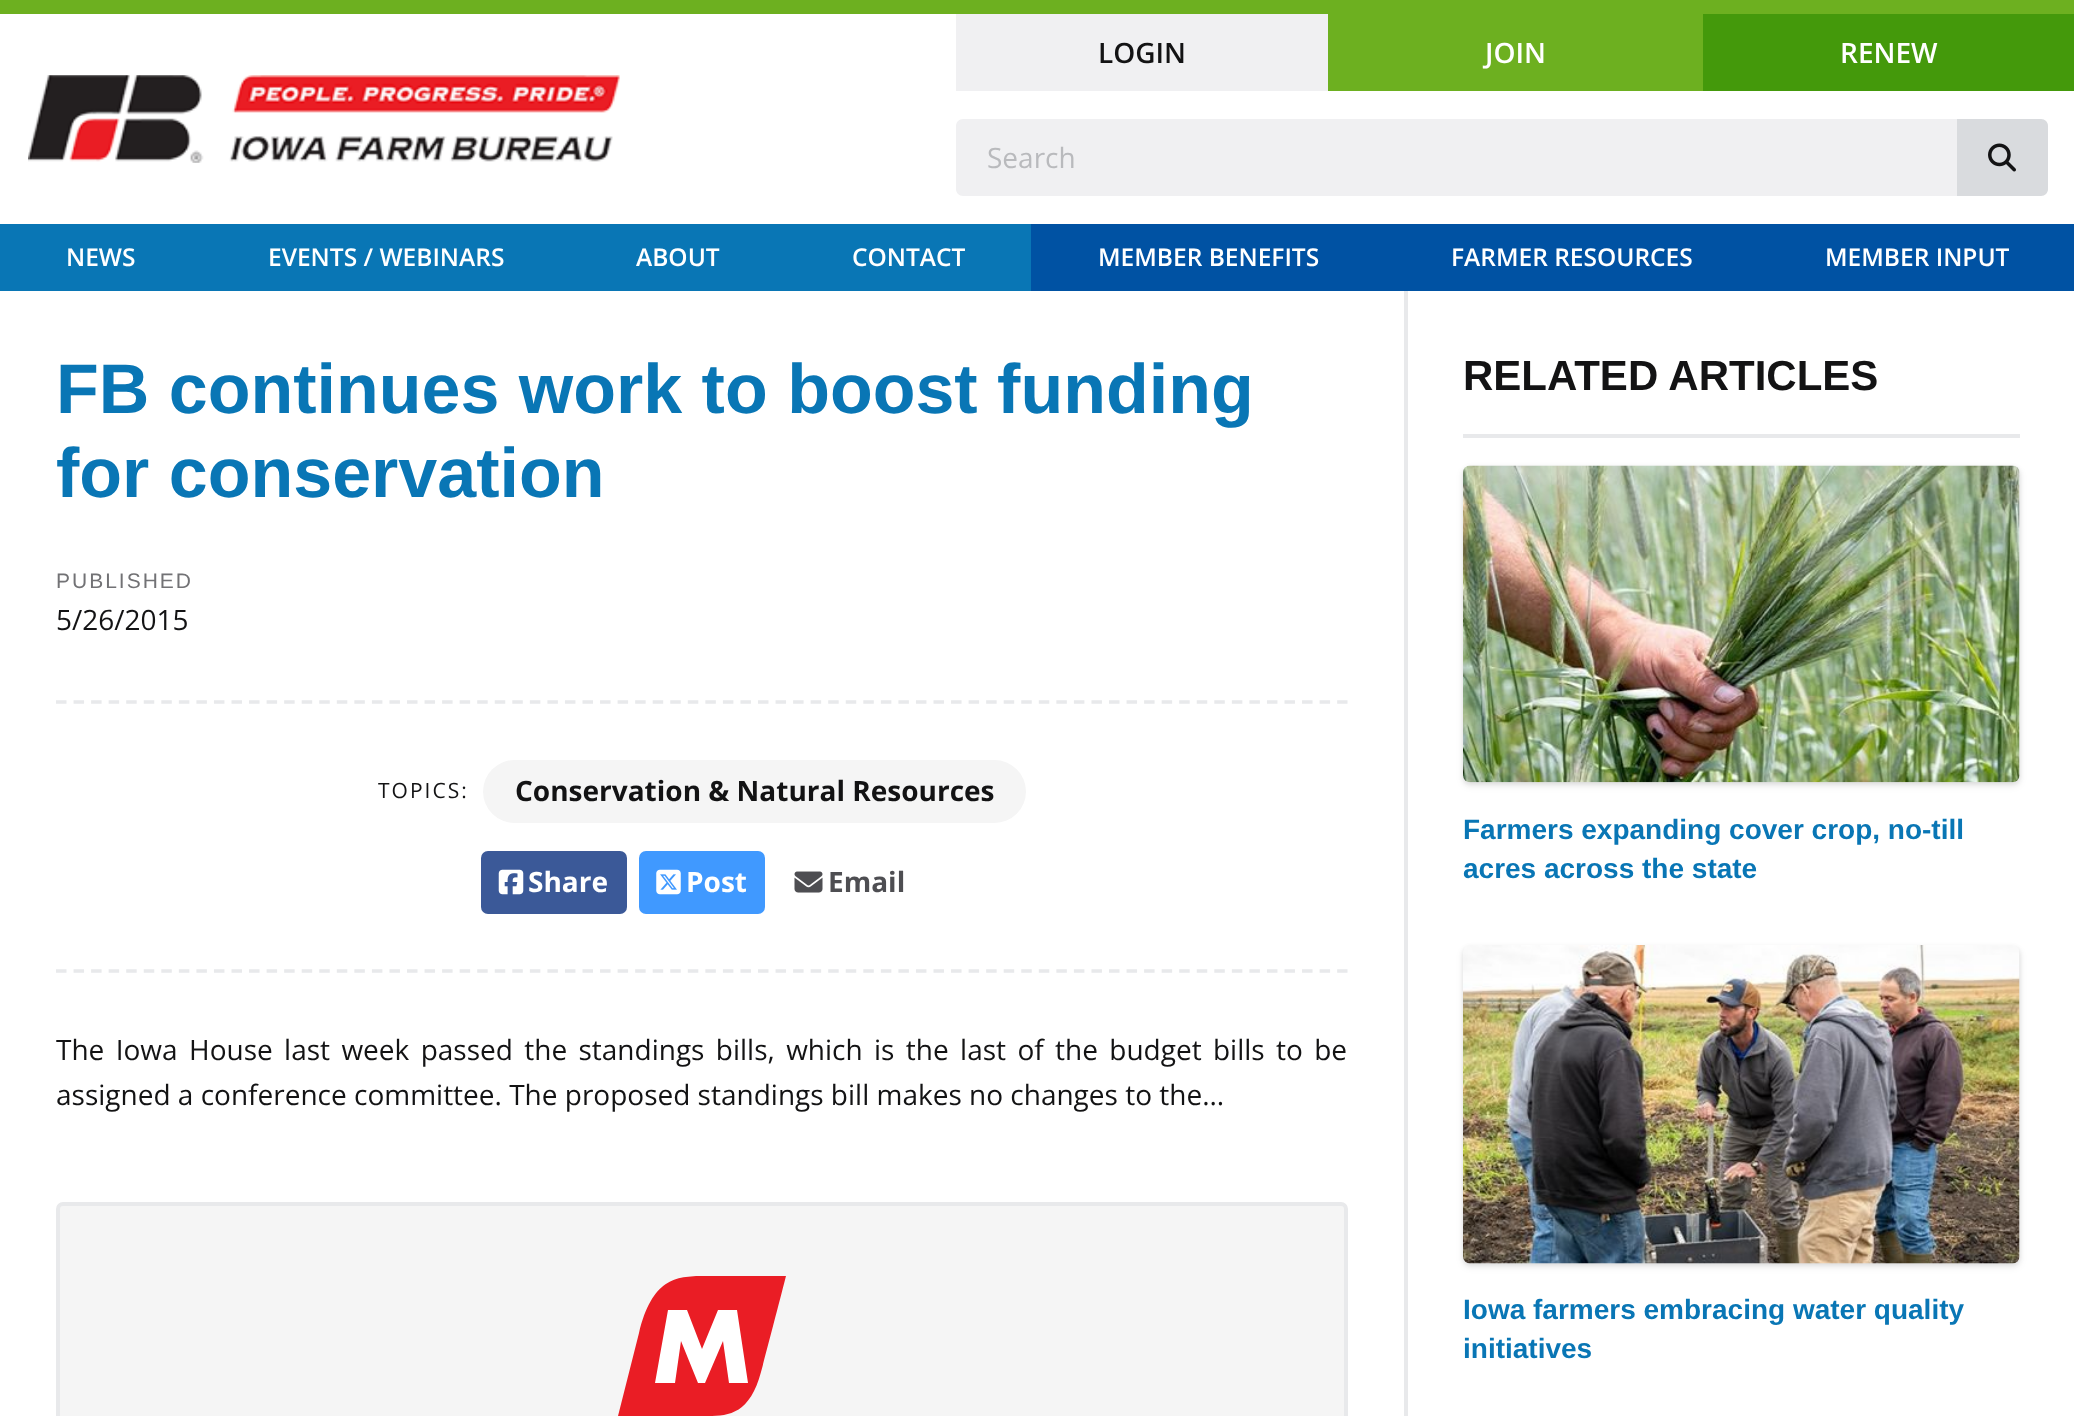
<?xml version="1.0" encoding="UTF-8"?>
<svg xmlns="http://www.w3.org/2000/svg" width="2074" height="1416">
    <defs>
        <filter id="blur1" x="-50%" y="-200%" width="200%" height="500%"><feGaussianBlur stdDeviation="2"/></filter>
        <filter id="blur2" x="-50%" y="-200%" width="200%" height="500%"><feGaussianBlur stdDeviation="3.5"/></filter>
    </defs>
    <rect width="100%" height="100%" fill="#FFFFFF"/>
    <rect x="0" y="0" width="2074" height="14" fill="#6DB020"/>
    <image x="28" y="75" width="592" height="88" href="img_01.png"/>
    <rect x="956" y="14" width="372" height="77" fill="#F0F0F2"/>
    <text x="1098" y="63" font-family="Open Sans" font-size="28" font-weight="600" fill="#131314">LOGIN</text>
    <rect x="1328" y="14" width="375" height="77" fill="#6DB020"/>
    <text x="1485" y="63" font-family="Open Sans" font-size="28" font-weight="600" fill="#FFFFFF">JOIN</text>
    <rect x="1703" y="14" width="371" height="77" fill="#44990B"/>
    <text x="1840" y="63" font-family="Open Sans" font-size="28" font-weight="600" fill="#FFFFFF">RENEW</text>
    <path d="M 963 119 H 1957 V 196 H 963 C 959 196 956 193 956 189 V 126 C 956 122 959 119 963 119 Z" fill="#F0F0F2"/>
    <text x="987" y="168" font-family="Open Sans" font-size="28" fill="#B9BABD">Search</text>
    <path d="M 1957 119 H 2041 C 2045 119 2048 122 2048 126 V 189 C 2048 193 2045 196 2041 196 H 1957 Z" fill="#D9DBDE"/>
    <image x="1988" y="143" width="28" height="29" href="img_02.png"/>
    <rect x="0" y="224" width="1031" height="67" fill="#0976B5"/>
    <text x="66" y="266" font-family="Open Sans" font-size="24.5" font-weight="600" fill="#FFFFFF">NEWS</text>
    <text x="268" y="266" font-family="Open Sans" font-size="24.5" font-weight="600" fill="#FFFFFF">EVENTS / WEBINARS</text>
    <text x="636" y="266" font-family="Open Sans" font-size="24.5" font-weight="600" fill="#FFFFFF">ABOUT</text>
    <text x="852" y="266" font-family="Open Sans" font-size="24.5" font-weight="600" fill="#FFFFFF">CONTACT</text>
    <rect x="1031" y="224" width="1043" height="67" fill="#0052A3"/>
    <text x="1098" y="266" font-family="Open Sans" font-size="24.5" font-weight="600" fill="#FFFFFF">MEMBER BENEFITS</text>
    <text x="1451" y="266" font-family="Open Sans" font-size="24.5" font-weight="600" fill="#FFFFFF">FARMER RESOURCES</text>
    <text x="1825" y="266" font-family="Open Sans" font-size="24.5" font-weight="600" fill="#FFFFFF">MEMBER INPUT</text>
    <text font-family="Liberation Sans" font-size="70" font-weight="700" fill="#0976B5">
        <tspan x="56" y="413">FB continues work to boost funding</tspan>
        <tspan x="56" y="497">for conservation</tspan>
    </text>
    <text x="56" y="588" font-family="Liberation Sans" font-size="21" letter-spacing="2" fill="#727275">PUBLISHED</text>
    <text x="56" y="630" font-family="Open Sans" font-size="28" fill="#131314">5/26/2015</text>
    <path d="M 56 702 H 1347.5" fill="none" stroke="#E8E9EB" stroke-width="3.5" stroke-dasharray="10.5 7.05"/>
    <path d="M 56 971 H 1347.5" fill="none" stroke="#E8E9EB" stroke-width="3.5" stroke-dasharray="10.5 7.05"/>
    <text x="378" y="798" font-family="Open Sans" font-size="21" letter-spacing="2" fill="#131314">TOPICS:</text>
    <rect x="483" y="760" width="543" height="63" rx="31.5" fill="#F5F5F5"/>
    <text x="515" y="801" font-family="Open Sans" font-size="28" font-weight="700" fill="#131314">Conservation &amp; Natural Resources</text>
    <rect x="481" y="851" width="146" height="63" rx="7" fill="#3B5998"/>
    <image x="498" y="869" width="26" height="26" href="img_03.png"/>
    <text x="528" y="892" font-family="Open Sans" font-size="28" font-weight="700" fill="#FFFFFF">Share</text>
    <rect x="639" y="851" width="126" height="63" rx="7" fill="#4099FF"/>
    <image x="656" y="869" width="25" height="26" href="img_04.png"/>
    <text x="686" y="892" font-family="Open Sans" font-size="28" font-weight="700" fill="#FFFFFF">Post</text>
    <image x="794" y="871" width="29" height="22" href="img_05.png"/>
    <text x="828" y="892" font-family="Open Sans" font-size="28" font-weight="700" fill="#4E4E52">Email</text>
    <text font-family="Open Sans" font-size="28" fill="#131314">
        <tspan x="56" y="1060" word-spacing="4.1">The Iowa House last week passed the standings bills, which is the last of the budget bills to be</tspan>
        <tspan x="56" y="1105">assigned a conference committee. The proposed standings bill makes no changes to the...</tspan>
    </text>
    <rect x="58" y="1204" width="1288" height="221" rx="5" fill="#F5F5F5" stroke="#E8E9EB" stroke-width="4"/>
    <rect x="655" y="1310" width="93" height="73" fill="#FFFFFF"/>
    <path d="M 716 1276 C 681 1276 654 1272 639 1333 L 618 1416 H 708 C 730 1416 750 1413 761 1372 C 774 1323 786 1276 786 1276 Z M 729 1383 L 723 1341 L 705 1383 H 698 L 681 1341 L 675 1383 H 655 L 668 1310 H 687 L 702 1349 L 718 1310 H 737 L 748 1383 Z" fill="#EA1D25"/>
    <rect x="1404" y="291" width="4" height="1125" fill="#E8E9EB"/>
    <rect x="1463" y="434" width="557" height="4" fill="#E8E9EB"/>
    <text x="1463" y="390" font-family="Liberation Sans" font-size="42" font-weight="700" fill="#131314">RELATED ARTICLES</text>
    <rect x="1463" y="467" width="557" height="317" rx="7" fill="#000000" fill-opacity="0.08" filter="url(#blur1)"/>
    <rect x="1463" y="469" width="557" height="317" rx="7" fill="#000000" fill-opacity="0.08" filter="url(#blur2)"/>
    <image x="1463" y="465" width="557" height="318" href="img_06.png"/>
    <text font-family="Liberation Sans" font-size="28" font-weight="700" fill="#0976B5">
        <tspan x="1463" y="839">Farmers expanding cover crop, no-till</tspan>
        <tspan x="1463" y="878">acres across the state</tspan>
    </text>
    <rect x="1463" y="947" width="557" height="318" rx="7" fill="#000000" fill-opacity="0.08" filter="url(#blur1)"/>
    <rect x="1463" y="949" width="557" height="318" rx="7" fill="#000000" fill-opacity="0.08" filter="url(#blur2)"/>
    <image x="1463" y="945" width="557" height="319" href="img_07.png"/>
    <text font-family="Liberation Sans" font-size="28" font-weight="700" fill="#0976B5">
        <tspan x="1463" y="1319">Iowa farmers embracing water quality</tspan>
        <tspan x="1463" y="1358">initiatives</tspan>
    </text>
</svg>
